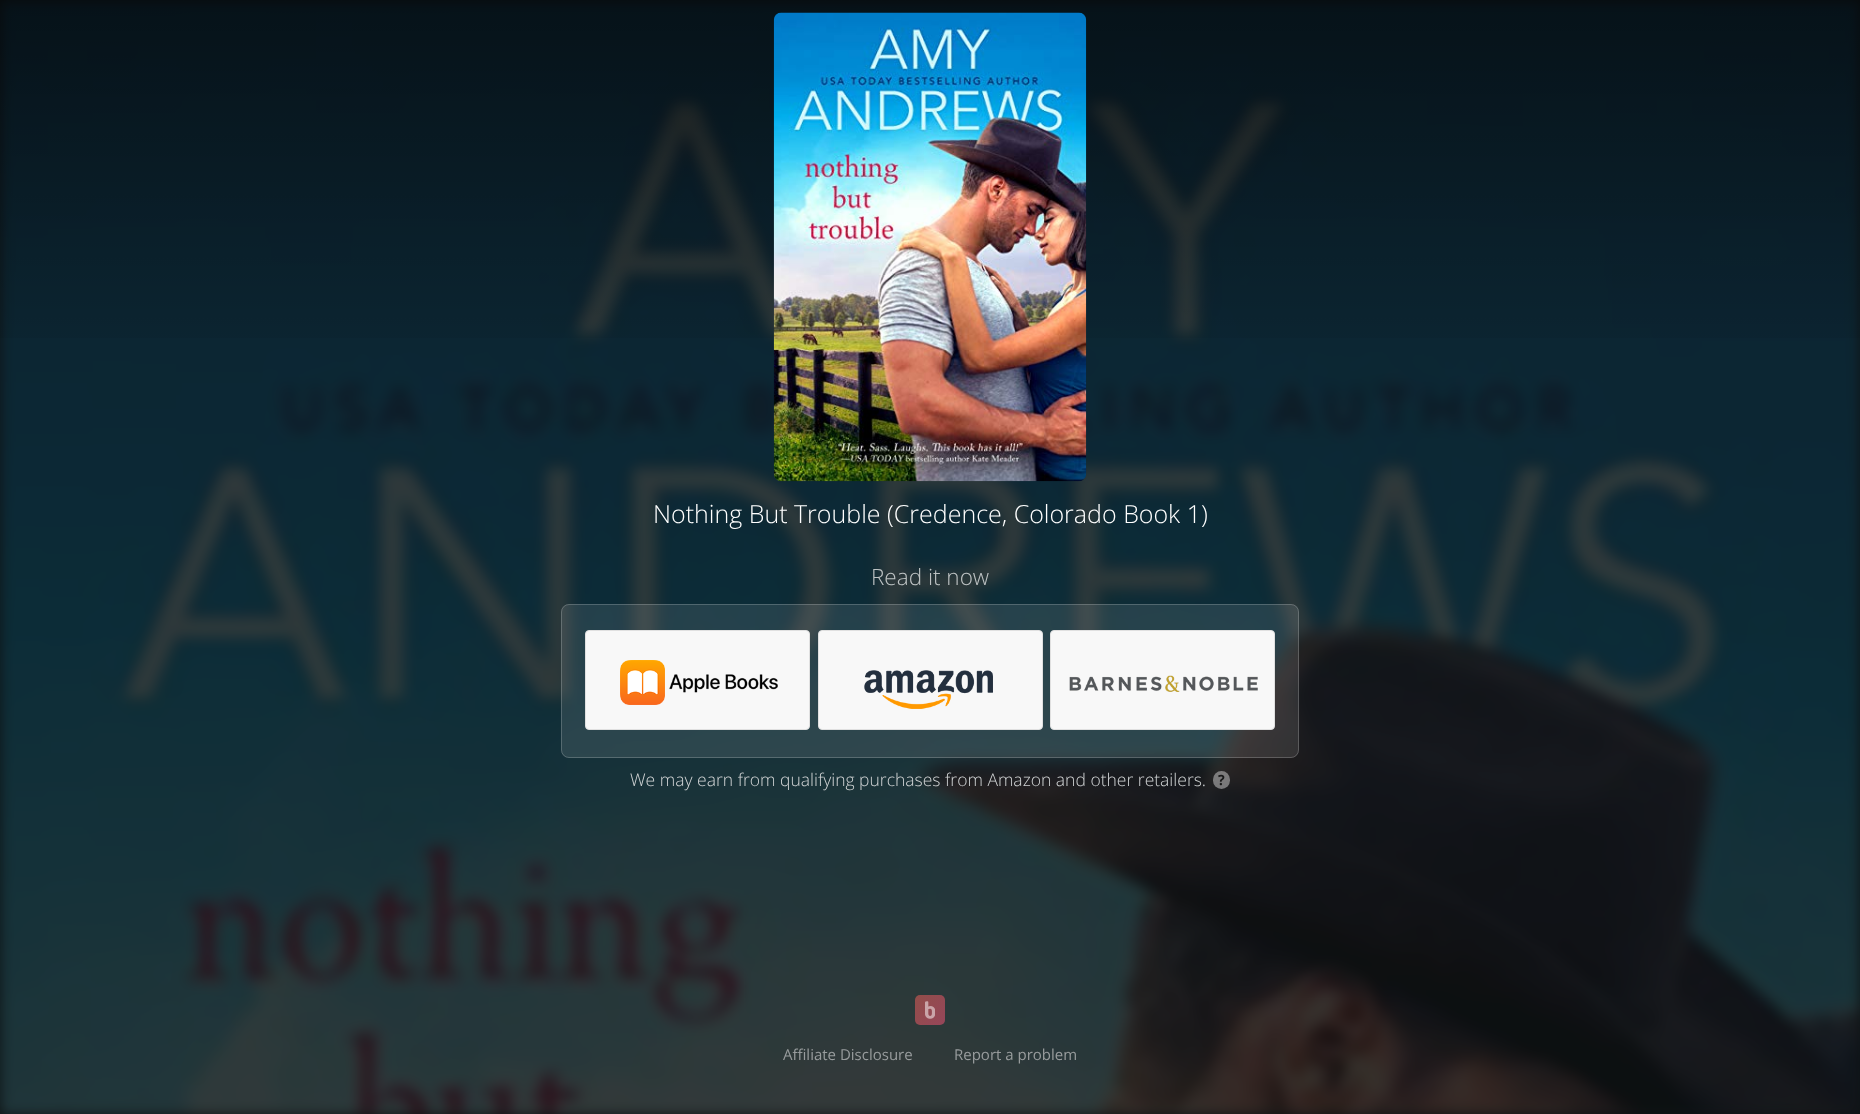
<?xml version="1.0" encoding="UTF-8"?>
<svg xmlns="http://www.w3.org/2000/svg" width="1860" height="1114">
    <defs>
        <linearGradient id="g1" gradientUnits="userSpaceOnUse" x1="930" y1="0" x2="930" y2="375"><stop offset="0" stop-color="#000000" stop-opacity="0.5"/><stop offset="1" stop-color="#000000" stop-opacity="0"/></linearGradient>
        <linearGradient id="g2" gradientUnits="userSpaceOnUse" x1="914" y1="996" x2="946" y2="1024"><stop offset="0" stop-color="#F96259" stop-opacity="0.5"/><stop offset="1" stop-color="#FF537A" stop-opacity="0.5"/></linearGradient>
    </defs>
    <rect width="100%" height="100%" fill="#0F1415"/>
    <image x="0" y="0" width="1860" height="1114" href="img_01.png"/>
    <rect x="0" y="0" width="1860" height="338" fill="url(#g1)"/>
    <image x="773" y="12" width="314" height="470" href="img_02.png"/>
    <text x="653" y="523" font-family="Open Sans" font-size="25" font-weight="300" fill="#FFFFFF">Nothing But Trouble (Credence, Colorado Book 1)</text>
    <text x="871" y="585" font-family="Open Sans" font-size="22.5" font-weight="300" fill="#BEC3C4">Read it now</text>
    <rect x="561" y="604" width="738" height="154" rx="8" fill="#FFFFFF" fill-opacity="0.1"/>
    <rect x="561.5" y="604.5" width="737" height="153" rx="7.5" fill="none" stroke="#FFFFFF" stroke-opacity="0.2"/>
    <rect x="585.5" y="630.5" width="224" height="99" rx="3.5" fill="#F8F8F8" stroke="#E0E0E0"/>
    <image x="620" y="660" width="158" height="45" href="img_03.png"/>
    <rect x="818.5" y="630.5" width="224" height="99" rx="3.5" fill="#F8F8F8" stroke="#E0E0E0"/>
    <image x="864" y="670" width="129" height="39" href="img_04.png"/>
    <rect x="1050.5" y="630.5" width="224" height="99" rx="3.5" fill="#F8F8F8" stroke="#E0E0E0"/>
    <image x="1069" y="675" width="189" height="17" href="img_05.png"/>
    <text x="630" y="786" font-family="Open Sans" font-size="17.5" font-weight="300" fill="#D1D4D5">We may earn from qualifying purchases from Amazon and other retailers.</text>
    <rect x="1213" y="771" width="17" height="18" rx="8.5" fill="#FFFFFF" fill-opacity="0.4"/>
    <text x="1218" y="785" font-family="Open Sans" font-size="14" font-weight="700" fill="#191919">?</text>
    <rect x="915" y="995" width="30" height="30" rx="5" fill="url(#g2)"/>
    <image x="925" y="1001" width="10" height="18" href="img_06.png"/>
    <text x="783" y="1060" font-family="Open Sans" font-size="15" fill="#989C9D">Affiliate Disclosure</text>
    <text x="954" y="1060" font-family="Open Sans" font-size="15" fill="#989C9D">Report a problem</text>
</svg>
